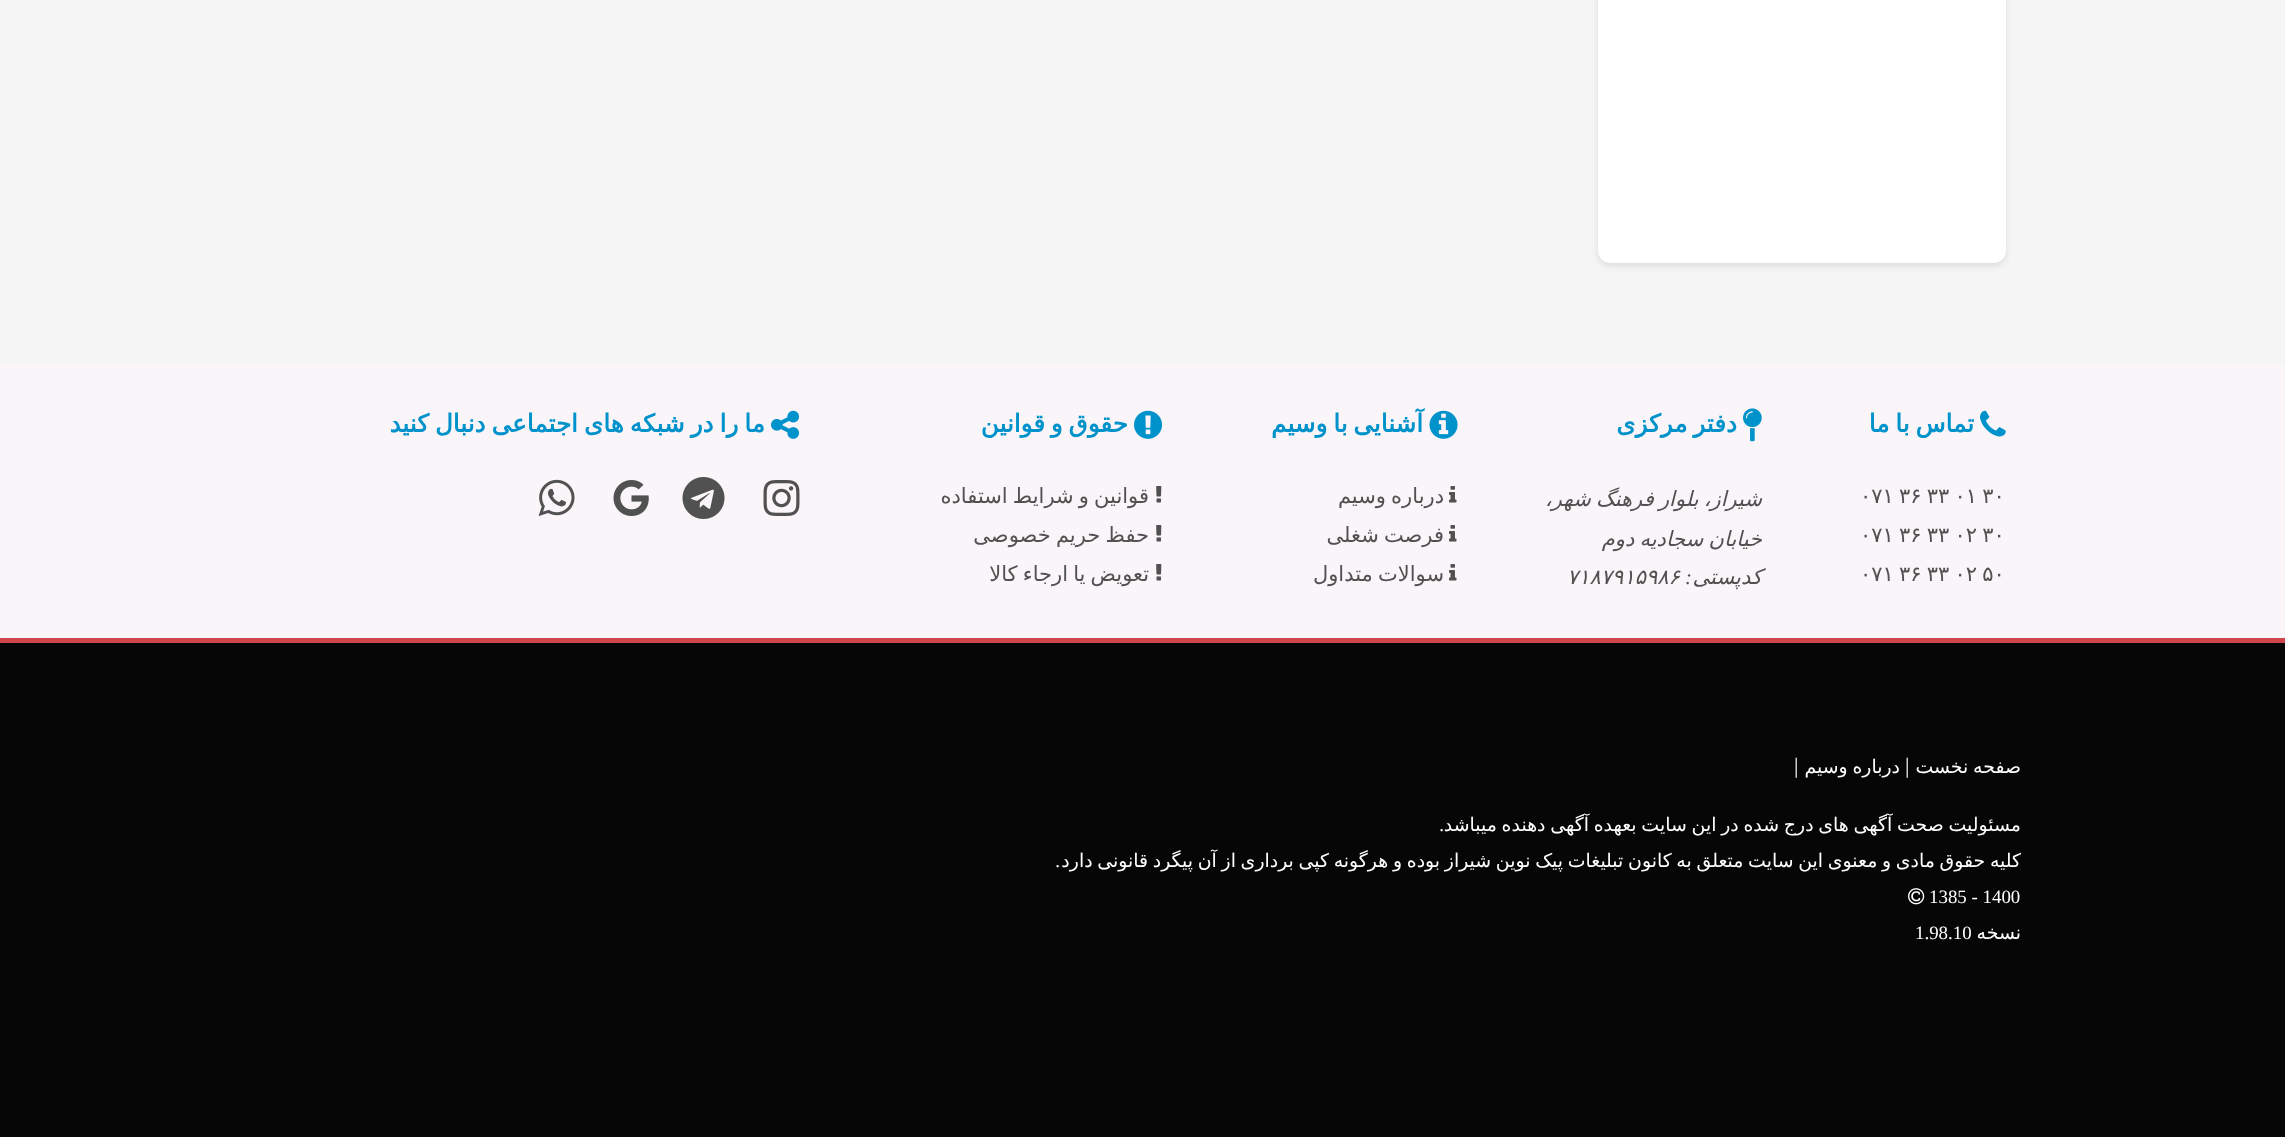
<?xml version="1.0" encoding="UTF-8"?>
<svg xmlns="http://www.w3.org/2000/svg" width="2285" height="1137">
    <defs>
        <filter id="blur1" x="-50%" y="-200%" width="200%" height="500%"><feGaussianBlur stdDeviation="3"/></filter>
    </defs>
    <rect width="100%" height="100%" fill="#F5F5F5"/>
    <rect x="1598" y="-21" width="408" height="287" rx="12" fill="#000000" fill-opacity="0.1" filter="url(#blur1)"/>
    <path d="M 1598 -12 H 2006 V 251 C 2006 257.5 2000.5 263 1994 263 H 1610 C 1603.5 263 1598 257.5 1598 251 Z" fill="#FFFFFF"/>
    <rect x="0" y="365" width="2285" height="273" fill="#F9F5F9"/>
    <image x="1980" y="410" width="26" height="27" href="img_01.png"/>
    <text x="1974" y="432" word-spacing="-2" font-family="DejaVu Sans" font-size="24.6" font-weight="700" direction="rtl" fill="#0092CA">تماس با ما</text>
    <text font-family="DejaVu Sans" font-size="21" fill="#515151">
        <tspan x="1860" y="503" word-spacing="-1.5">۰۷۱ ۳۶ ۳۳ ۰۱ ۳۰</tspan>
        <tspan x="1860" y="542" word-spacing="-1.5">۰۷۱ ۳۶ ۳۳ ۰۲ ۳۰</tspan>
        <tspan x="1860" y="581" word-spacing="-1.5">۰۷۱ ۳۶ ۳۳ ۰۲ ۵۰</tspan>
    </text>
    <image x="1743" y="408" width="19" height="34" href="img_02.png"/>
    <text x="1737" y="432" word-spacing="-2" font-family="DejaVu Sans" font-size="24.6" font-weight="700" direction="rtl" fill="#0092CA">دفتر مرکزی</text>
    <text font-family="DejaVu Sans" font-size="21" font-style="italic" direction="rtl" fill="#515151">
        <tspan x="1762" y="506" word-spacing="-1.5">شیراز، بلوار فرهنگ شهر،</tspan>
        <tspan x="1762" y="546" word-spacing="-1.5">خیابان سجادیه دوم</tspan>
        <tspan x="1762" y="584">کدپستی</tspan>
    </text>
    <text x="1692" y="584" font-family="Liberation Serif" font-size="21" font-style="italic" direction="rtl" fill="#515151">:</text>
    <text x="1567" y="584" font-family="DejaVu Sans" font-size="21" font-style="italic" fill="#515151">۷۱۸۷۹۱۵۹۸۶</text>
    <image x="1429" y="410" width="29" height="29" href="img_03.png"/>
    <text x="1423" y="432" word-spacing="-2" font-family="DejaVu Sans" font-size="24.6" font-weight="700" direction="rtl" fill="#0092CA">آشنایی با وسیم</text>
    <image x="1449" y="486" width="8" height="17" href="img_04.png"/>
    <text x="1444" y="503" word-spacing="-1.5" font-family="DejaVu Sans" font-size="21" direction="rtl" fill="#515151">درباره وسیم</text>
    <image x="1449" y="525" width="8" height="17" href="img_04.png"/>
    <text x="1444" y="542" word-spacing="-1.5" font-family="DejaVu Sans" font-size="21" direction="rtl" fill="#515151">فرصت شغلی</text>
    <image x="1449" y="564" width="8" height="17" href="img_04.png"/>
    <text x="1444" y="581" word-spacing="-1.5" font-family="DejaVu Sans" font-size="21" direction="rtl" fill="#515151">سوالات متداول</text>
    <image x="1134" y="410" width="29" height="29" href="img_05.png"/>
    <text x="1128" y="432" word-spacing="-2" font-family="DejaVu Sans" font-size="24.6" font-weight="700" direction="rtl" fill="#0092CA">حقوق و قوانین</text>
    <image x="1156" y="486" width="6" height="17" href="img_06.png"/>
    <text x="1149" y="503" word-spacing="-1.5" font-family="DejaVu Sans" font-size="21" direction="rtl" fill="#515151">قوانین و شرایط استفاده</text>
    <image x="1156" y="525" width="6" height="17" href="img_06.png"/>
    <text x="1149" y="542" word-spacing="-1.5" font-family="DejaVu Sans" font-size="21" direction="rtl" fill="#515151">حفظ حریم خصوصی</text>
    <image x="1156" y="564" width="6" height="17" href="img_06.png"/>
    <text x="1149" y="581" word-spacing="-1.5" font-family="DejaVu Sans" font-size="21" direction="rtl" fill="#515151">تعویض یا ارجاء کالا</text>
    <image x="771" y="410" width="29" height="29" href="img_07.png"/>
    <text x="765" y="432" word-spacing="-1.75" font-family="DejaVu Sans" font-size="24.6" font-weight="700" direction="rtl" fill="#0092CA">ما را در شبکه های اجتماعی دنبال کنید</text>
    <image x="763" y="480" width="37" height="36" href="img_08.png"/>
    <image x="682" y="477" width="43" height="42" href="img_09.png"/>
    <image x="613" y="480" width="36" height="36" href="img_10.png"/>
    <image x="538" y="479" width="37" height="38" href="img_11.png"/>
    <rect x="0" y="643" width="2285" height="494" fill="#060606"/>
    <rect x="0" y="638" width="2285" height="5" fill="#CF444B"/>
    <text x="2021" y="773" word-spacing="-1.25" font-family="DejaVu Sans" font-size="18.9" direction="rtl" fill="#FFFFFF">صفحه نخست</text>
    <text x="1905" y="773" font-family="Liberation Serif" font-size="22" fill="#FFFFFF">|</text>
    <text x="1900" y="773" word-spacing="-1.25" font-family="DejaVu Sans" font-size="18.9" direction="rtl" fill="#FFFFFF">درباره وسیم</text>
    <text x="1794" y="773" font-family="Liberation Serif" font-size="22" fill="#FFFFFF">|</text>
    <text x="2021" y="831" word-spacing="-1.25" font-family="DejaVu Sans" font-size="18.9" direction="rtl" fill="#FFFFFF">مسئولیت صحت آگهی های درج شده در این سایت بعهده آگهی دهنده میباشد</text>
    <text x="1444" y="831" font-family="Liberation Serif" font-size="18.9" direction="rtl" fill="#FFFFFF">.</text>
    <text x="2021" y="867" word-spacing="-1.3" font-family="DejaVu Sans" font-size="18.9" direction="rtl" fill="#FFFFFF">کلیه حقوق مادی و معنوی این سایت متعلق به کانون تبلیغات پیک نوین شیراز بوده و هرگونه کپی برداری از آن پیگرد قانونی دارد</text>
    <text x="1060" y="867" font-family="Liberation Serif" font-size="18.9" direction="rtl" fill="#FFFFFF">.</text>
    <text x="1929" y="903" font-family="Liberation Serif" font-size="18.9" fill="#FFFFFF">1385 - 1400</text>
    <image x="1908" y="888" width="17" height="17" href="img_12.png"/>
    <text x="2021" y="939" font-family="DejaVu Sans" font-size="18.9" direction="rtl" fill="#FFFFFF">نسخه</text>
    <text x="1915" y="939" font-family="Liberation Serif" font-size="18.9" fill="#FFFFFF">1.98.10</text>
</svg>
